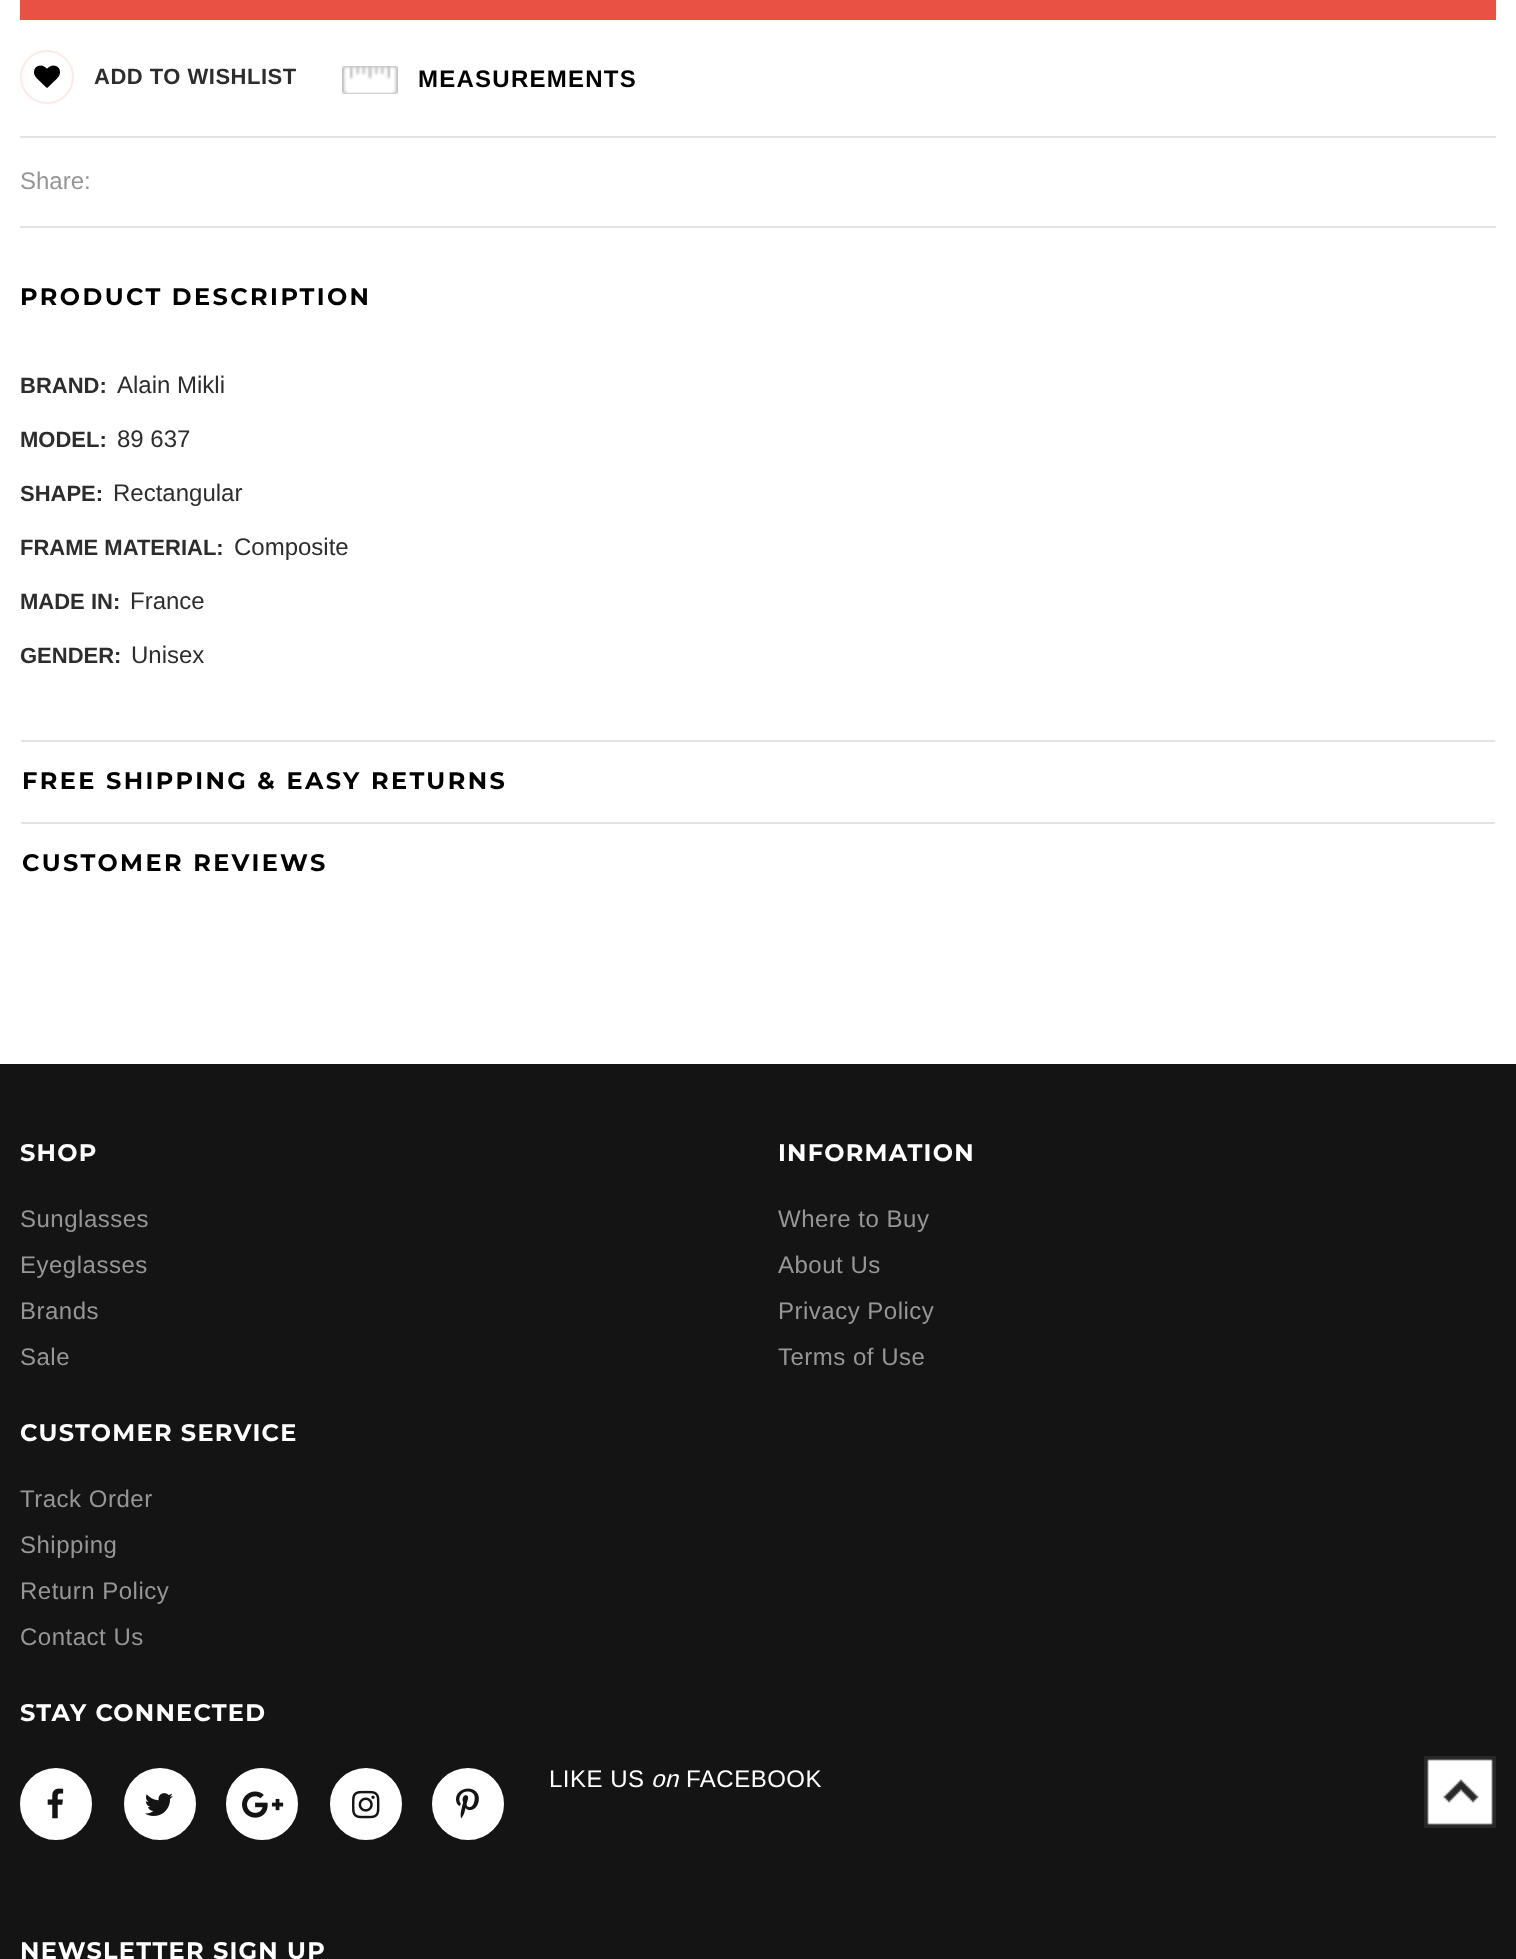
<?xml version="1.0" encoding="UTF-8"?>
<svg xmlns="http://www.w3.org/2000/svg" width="1516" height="1959">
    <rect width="100%" height="100%" fill="#FFFFFF"/>
    <rect x="20" y="0" width="1476" height="20" fill="#E95144"/>
    <circle cx="47" cy="77" r="26" fill="none" stroke="#FFE8E8" stroke-width="2"/>
    <image x="34" y="65" width="26" height="23" href="img_01.png"/>
    <text x="94" y="84" font-family="Arimo" font-size="22" font-weight="700" letter-spacing="0.5" fill="#2D2D2D">ADD TO WISHLIST</text>
    <image x="342" y="66" width="56" height="28" href="img_02.png"/>
    <text x="418" y="87" font-family="Arimo" font-size="24" font-weight="700" letter-spacing="1.25" fill="#000000">MEASUREMENTS</text>
    <rect x="20" y="136" width="1476" height="2" fill="#E3E3E3"/>
    <rect x="20" y="226" width="1476" height="2" fill="#E3E3E3"/>
    <text x="20" y="189" font-family="Arimo" font-size="24" fill="#969696">Share:</text>
    <text x="20" y="305" font-family="Montserrat" font-size="24" font-weight="700" letter-spacing="2.4" fill="#000000">PRODUCT DESCRIPTION</text>
    <text x="20" y="393" font-family="Arimo" font-size="22" font-weight="700" fill="#2D2D2D">BRAND:</text>
    <text x="117" y="393" font-family="Arimo" font-size="24" fill="#2D2D2D">Alain Mikli</text>
    <text x="20" y="447" font-family="Arimo" font-size="22" font-weight="700" fill="#2D2D2D">MODEL:</text>
    <text x="117" y="447" font-family="Arimo" font-size="24" fill="#2D2D2D">89 637</text>
    <text x="20" y="501" font-family="Arimo" font-size="22" font-weight="700" fill="#2D2D2D">SHAPE:</text>
    <text x="113" y="501" font-family="Arimo" font-size="24" fill="#2D2D2D">Rectangular</text>
    <text x="20" y="555" font-family="Arimo" font-size="22" font-weight="700" fill="#2D2D2D">FRAME MATERIAL:</text>
    <text x="234" y="555" font-family="Arimo" font-size="24" fill="#2D2D2D">Composite</text>
    <text x="20" y="609" font-family="Arimo" font-size="22" font-weight="700" fill="#2D2D2D">MADE IN:</text>
    <text x="130" y="609" font-family="Arimo" font-size="24" fill="#2D2D2D">France</text>
    <text x="20" y="663" font-family="Arimo" font-size="22" font-weight="700" fill="#2D2D2D">GENDER:</text>
    <text x="131" y="663" font-family="Arimo" font-size="24" fill="#2D2D2D">Unisex</text>
    <path d="M 20 740 H 1496 L 1494 742 H 22 Z" fill="#E3E3E3"/>
    <text x="22" y="789" font-family="Montserrat" font-size="24" font-weight="700" letter-spacing="2.4" fill="#000000">FREE SHIPPING &amp; EASY RETURNS</text>
    <path d="M 20 822 H 1496 L 1494 824 H 22 Z" fill="#E3E3E3"/>
    <text x="22" y="871" font-family="Montserrat" font-size="24" font-weight="700" letter-spacing="2.4" fill="#000000">CUSTOMER REVIEWS</text>
    <rect x="0" y="1064" width="1516" height="895" fill="#141414"/>
    <text x="20" y="1161" font-family="Montserrat" font-size="24" font-weight="700" letter-spacing="1.25" fill="#FFFFFF">SHOP</text>
    <text font-family="Arimo" font-size="24" letter-spacing="0.5" fill="#969696">
        <tspan x="20" y="1227">Sunglasses</tspan>
        <tspan x="20" y="1273">Eyeglasses</tspan>
        <tspan x="20" y="1319">Brands</tspan>
        <tspan x="20" y="1365">Sale</tspan>
    </text>
    <text x="778" y="1161" font-family="Montserrat" font-size="24" font-weight="700" letter-spacing="1.25" fill="#FFFFFF">INFORMATION</text>
    <text font-family="Arimo" font-size="24" letter-spacing="0.5" fill="#969696">
        <tspan x="778" y="1227">Where to Buy</tspan>
        <tspan x="778" y="1273">About Us</tspan>
        <tspan x="778" y="1319">Privacy Policy</tspan>
        <tspan x="778" y="1365">Terms of Use</tspan>
    </text>
    <text x="20" y="1441" font-family="Montserrat" font-size="24" font-weight="700" letter-spacing="1.25" fill="#FFFFFF">CUSTOMER SERVICE</text>
    <text font-family="Arimo" font-size="24" letter-spacing="0.5" fill="#969696">
        <tspan x="20" y="1507">Track Order</tspan>
        <tspan x="20" y="1553">Shipping</tspan>
        <tspan x="20" y="1599">Return Policy</tspan>
        <tspan x="20" y="1645">Contact Us</tspan>
    </text>
    <text x="20" y="1721" font-family="Montserrat" font-size="24" font-weight="700" letter-spacing="1.25" fill="#FFFFFF">STAY CONNECTED</text>
    <circle cx="56" cy="1804" r="35" fill="#FFFFFF" stroke="#FFFFFF" stroke-width="2"/>
    <image x="47" y="1788" width="17" height="31" href="img_03.png"/>
    <circle cx="160" cy="1804" r="35" fill="#FFFFFF" stroke="#FFFFFF" stroke-width="2"/>
    <image x="145" y="1793" width="28" height="23" href="img_04.png"/>
    <circle cx="262" cy="1804" r="35" fill="#FFFFFF" stroke="#FFFFFF" stroke-width="2"/>
    <image x="242" y="1791" width="42" height="27" href="img_05.png"/>
    <circle cx="366" cy="1804" r="35" fill="#FFFFFF" stroke="#FFFFFF" stroke-width="2"/>
    <image x="352" y="1790" width="28" height="29" href="img_06.png"/>
    <circle cx="468" cy="1804" r="35" fill="#FFFFFF" stroke="#FFFFFF" stroke-width="2"/>
    <image x="456" y="1788" width="23" height="31" href="img_07.png"/>
    <text x="549" y="1787" font-family="Arimo" font-size="24" letter-spacing="0.5" fill="#FFFFFF">LIKE US</text>
    <text x="651" y="1787" font-family="Arimo" font-size="24" font-style="italic" letter-spacing="0.5" fill="#FFFFFF">on</text>
    <text x="686" y="1787" font-family="Arimo" font-size="24" letter-spacing="0.5" fill="#FFFFFF">FACEBOOK</text>
    <text x="20" y="1959" font-family="Montserrat" font-size="24" font-weight="700" letter-spacing="1.25" fill="#FFFFFF">NEWSLETTER SIGN UP</text>
    <rect x="1427" y="1759" width="66" height="66" fill="#FFFFFF"/>
    <image x="1424" y="1756" width="72" height="72" href="img_08.png"/>
</svg>
